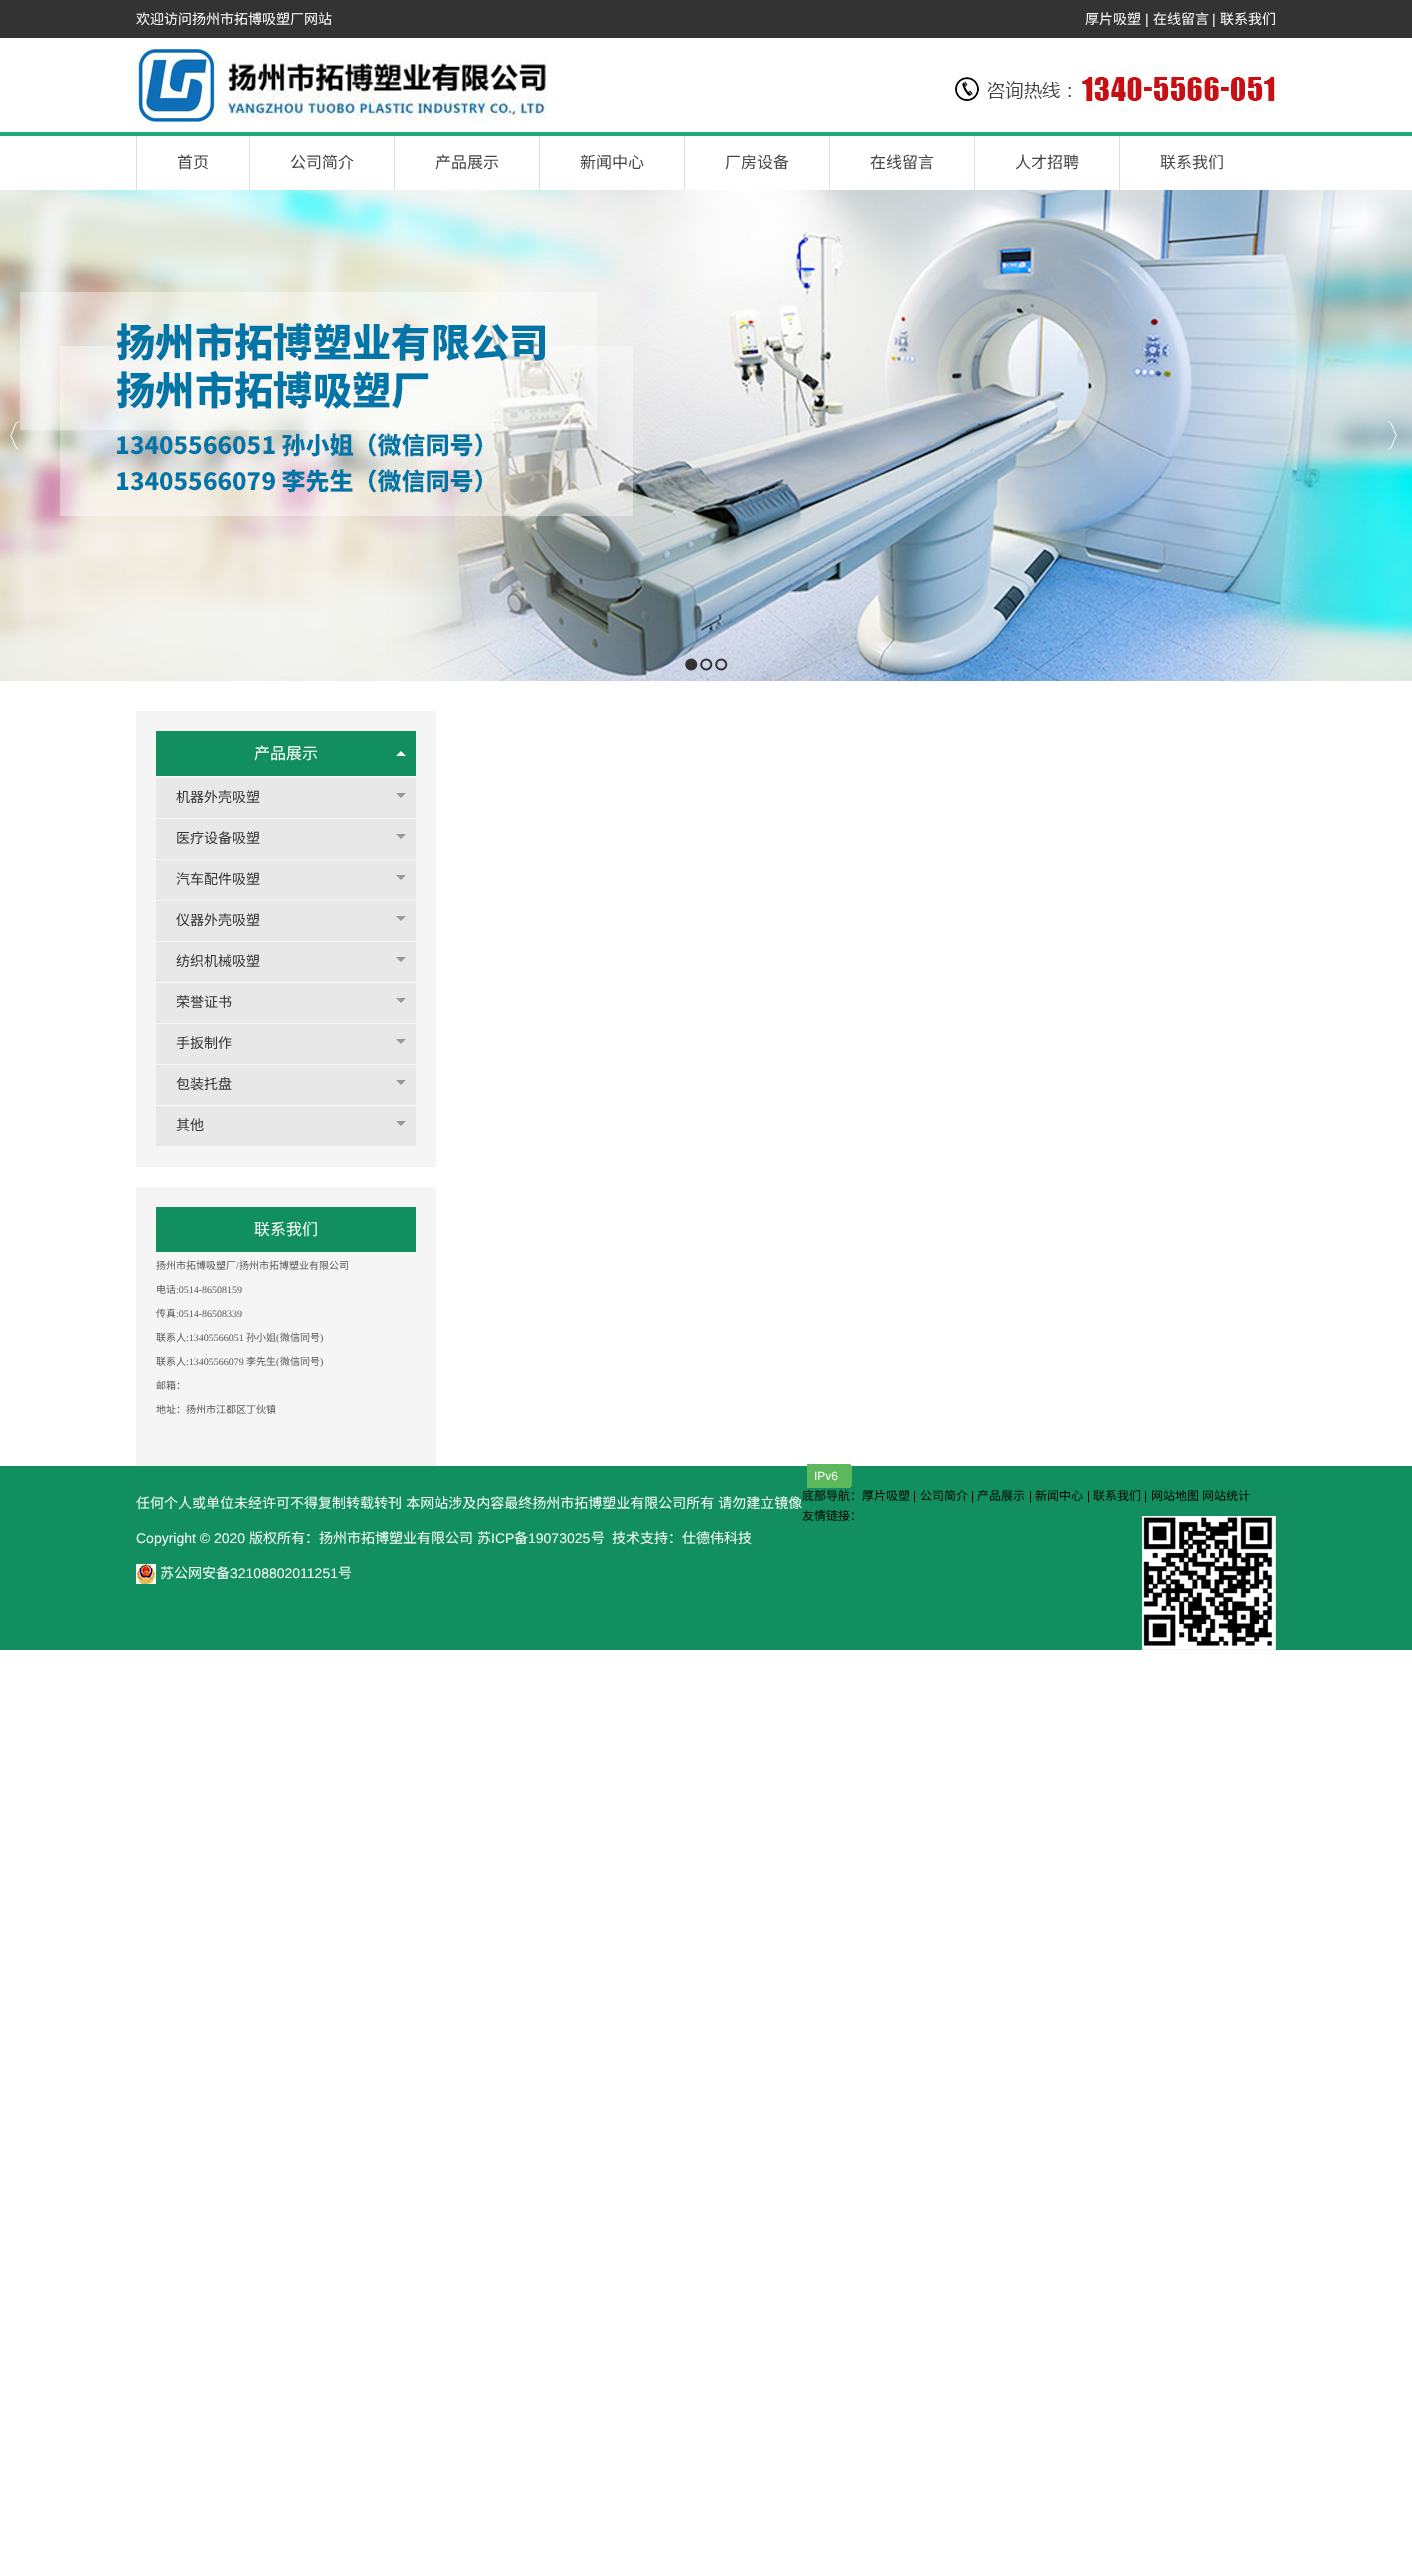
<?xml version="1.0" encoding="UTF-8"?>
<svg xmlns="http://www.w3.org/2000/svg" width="1412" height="2568">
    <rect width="100%" height="100%" fill="#FFFFFF"/>
    <rect x="0" y="0" width="1412" height="38" fill="#333333"/>
    <text x="136" y="24" font-family="Noto Sans CJK SC" font-size="14" fill="#FFFFFF">欢迎访问扬州市拓博吸塑厂网站</text>
    <text x="1085" y="24" font-family="Noto Sans CJK SC" font-size="14" fill="#FFFFFF">厚片吸塑</text>
    <text x="1145" y="24" font-family="Liberation Sans" font-size="14" fill="#FFFFFF">|</text>
    <text x="1153" y="24" font-family="Noto Sans CJK SC" font-size="14" fill="#FFFFFF">在线留言</text>
    <text x="1212" y="24" font-family="Liberation Sans" font-size="14" fill="#FFFFFF">|</text>
    <text x="1220" y="24" font-family="Noto Sans CJK SC" font-size="14" fill="#FFFFFF">联系我们</text>
    <image x="136" y="46" width="1142" height="80" href="img_01.png"/>
    <rect x="0" y="132" width="1412" height="4" fill="#1DAA75"/>
    <rect x="136" y="136" width="1" height="54" fill="#DFDFDF"/>
    <text x="177" y="168" font-family="Noto Sans CJK SC" font-size="16" fill="#464646">首页</text>
    <rect x="249" y="136" width="1" height="54" fill="#DFDFDF"/>
    <text x="290" y="168" font-family="Noto Sans CJK SC" font-size="16" fill="#464646">公司简介</text>
    <rect x="394" y="136" width="1" height="54" fill="#DFDFDF"/>
    <text x="435" y="168" font-family="Noto Sans CJK SC" font-size="16" fill="#464646">产品展示</text>
    <rect x="539" y="136" width="1" height="54" fill="#DFDFDF"/>
    <text x="580" y="168" font-family="Noto Sans CJK SC" font-size="16" fill="#464646">新闻中心</text>
    <rect x="684" y="136" width="1" height="54" fill="#DFDFDF"/>
    <text x="725" y="168" font-family="Noto Sans CJK SC" font-size="16" fill="#464646">厂房设备</text>
    <rect x="829" y="136" width="1" height="54" fill="#DFDFDF"/>
    <text x="870" y="168" font-family="Noto Sans CJK SC" font-size="16" fill="#464646">在线留言</text>
    <rect x="974" y="136" width="1" height="54" fill="#DFDFDF"/>
    <text x="1015" y="168" font-family="Noto Sans CJK SC" font-size="16" fill="#464646">人才招聘</text>
    <rect x="1119" y="136" width="1" height="54" fill="#DFDFDF"/>
    <text x="1160" y="168" font-family="Noto Sans CJK SC" font-size="16" fill="#464646">联系我们</text>
    <image x="0" y="190" width="1412" height="491" href="img_02.png"/>
    <image x="685" y="658" width="13" height="13" href="img_03.png"/>
    <image x="700" y="658" width="13" height="13" href="img_04.png"/>
    <image x="715" y="658" width="13" height="13" href="img_05.png"/>
    <image x="10" y="421" width="10" height="29" href="img_06.png"/>
    <image x="1387" y="421" width="10" height="29" href="img_07.png"/>
    <rect x="136" y="711" width="300" height="456" fill="#F5F5F5"/>
    <rect x="156" y="731" width="260" height="45" fill="#118F60"/>
    <text x="254" y="759" font-family="Noto Sans CJK SC" font-size="16" fill="#FFFFFF">产品展示</text>
    <path d="M 406 756 H 396 L 401 751 Z" fill="#FFFFFF"/>
    <rect x="156" y="778" width="260" height="40" fill="#E8E8E8"/>
    <text x="176" y="802" font-family="Noto Sans CJK SC" font-size="14" fill="#333333">机器外壳吸塑</text>
    <path d="M 396 793 H 406 L 401 798 Z" fill="#999999"/>
    <rect x="156" y="819" width="260" height="40" fill="#E8E8E8"/>
    <text x="176" y="843" font-family="Noto Sans CJK SC" font-size="14" fill="#333333">医疗设备吸塑</text>
    <path d="M 396 834 H 406 L 401 839 Z" fill="#999999"/>
    <rect x="156" y="860" width="260" height="40" fill="#E8E8E8"/>
    <text x="176" y="884" font-family="Noto Sans CJK SC" font-size="14" fill="#333333">汽车配件吸塑</text>
    <path d="M 396 875 H 406 L 401 880 Z" fill="#999999"/>
    <rect x="156" y="901" width="260" height="40" fill="#E8E8E8"/>
    <text x="176" y="925" font-family="Noto Sans CJK SC" font-size="14" fill="#333333">仪器外壳吸塑</text>
    <path d="M 396 916 H 406 L 401 921 Z" fill="#999999"/>
    <rect x="156" y="942" width="260" height="40" fill="#E8E8E8"/>
    <text x="176" y="966" font-family="Noto Sans CJK SC" font-size="14" fill="#333333">纺织机械吸塑</text>
    <path d="M 396 957 H 406 L 401 962 Z" fill="#999999"/>
    <rect x="156" y="983" width="260" height="40" fill="#E8E8E8"/>
    <text x="176" y="1007" font-family="Noto Sans CJK SC" font-size="14" fill="#333333">荣誉证书</text>
    <path d="M 396 998 H 406 L 401 1003 Z" fill="#999999"/>
    <rect x="156" y="1024" width="260" height="40" fill="#E8E8E8"/>
    <text x="176" y="1048" font-family="Noto Sans CJK SC" font-size="14" fill="#333333">手扳制作</text>
    <path d="M 396 1039 H 406 L 401 1044 Z" fill="#999999"/>
    <rect x="156" y="1065" width="260" height="40" fill="#E8E8E8"/>
    <text x="176" y="1089" font-family="Noto Sans CJK SC" font-size="14" fill="#333333">包装托盘</text>
    <path d="M 396 1080 H 406 L 401 1085 Z" fill="#999999"/>
    <rect x="156" y="1106" width="260" height="40" fill="#E8E8E8"/>
    <text x="176" y="1130" font-family="Noto Sans CJK SC" font-size="14" fill="#333333">其他</text>
    <path d="M 396 1121 H 406 L 401 1126 Z" fill="#999999"/>
    <rect x="136" y="1187" width="300" height="279" fill="#F5F5F5"/>
    <rect x="156" y="1207" width="260" height="45" fill="#118F60"/>
    <text x="254" y="1235" font-family="Noto Sans CJK SC" font-size="16" fill="#FFFFFF">联系我们</text>
    <text x="156" y="1269" font-family="Noto Sans CJK SC" font-size="10" fill="#585858">扬州市拓博吸塑厂</text>
    <text x="236" y="1269" font-family="Liberation Serif" font-size="10" fill="#585858">/</text>
    <text x="239" y="1269" font-family="Noto Sans CJK SC" font-size="10" fill="#585858">扬州市拓博塑业有限公司</text>
    <text x="156" y="1293" font-family="Noto Sans CJK SC" font-size="10" fill="#585858">电话</text>
    <text x="176" y="1293" font-family="Liberation Serif" font-size="10" fill="#585858">:0514-86508159</text>
    <text x="156" y="1317" font-family="Noto Sans CJK SC" font-size="10" fill="#585858">传真</text>
    <text x="176" y="1317" font-family="Liberation Serif" font-size="10" fill="#585858">:0514-86508339</text>
    <text x="156" y="1341" font-family="Noto Sans CJK SC" font-size="10" fill="#585858">联系人</text>
    <text x="186" y="1341" font-family="Liberation Serif" font-size="10" fill="#585858">:13405566051</text>
    <text x="246" y="1341" font-family="Noto Sans CJK SC" font-size="10" fill="#585858">孙小姐</text>
    <text x="276" y="1341" font-family="Liberation Serif" font-size="10" fill="#585858">(</text>
    <text x="280" y="1341" font-family="Noto Sans CJK SC" font-size="10" fill="#585858">微信同号</text>
    <text x="320" y="1341" font-family="Liberation Serif" font-size="10" fill="#585858">)</text>
    <text x="156" y="1365" font-family="Noto Sans CJK SC" font-size="10" fill="#585858">联系人</text>
    <text x="186" y="1365" font-family="Liberation Serif" font-size="10" fill="#585858">:13405566079</text>
    <text x="246" y="1365" font-family="Noto Sans CJK SC" font-size="10" fill="#585858">李先生</text>
    <text x="276" y="1365" font-family="Liberation Serif" font-size="10" fill="#585858">(</text>
    <text x="280" y="1365" font-family="Noto Sans CJK SC" font-size="10" fill="#585858">微信同号</text>
    <text x="320" y="1365" font-family="Liberation Serif" font-size="10" fill="#585858">)</text>
    <text x="156" y="1389" font-family="Noto Sans CJK SC" font-size="10" fill="#585858">邮箱：</text>
    <text x="156" y="1413" font-family="Noto Sans CJK SC" font-size="10" fill="#585858">地址：扬州市江都区丁伙镇</text>
    <rect x="0" y="1466" width="1412" height="184" fill="#118F60"/>
    <path d="M 807 1464 H 849 C 850.5 1464 852 1465.5 852 1467 V 1485 C 852 1486.5 850.5 1488 849 1488 H 807 Z" fill="#5CB85C"/>
    <text x="814" y="1480" font-family="Liberation Sans" font-size="12" fill="#FFFFFF">IPv6</text>
    <text x="136" y="1508" word-spacing="1" font-family="Noto Sans CJK SC" font-size="14" fill="#FFFFFF">任何个人或单位未经许可不得复制转载转刊 本网站涉及内容最终扬州市拓博塑业有限公司所有 请勿建立镜像</text>
    <text x="136" y="1543" font-family="Liberation Sans" font-size="14" fill="#FFFFFF">Copyright © 2020</text>
    <text x="249" y="1543" font-family="Noto Sans CJK SC" font-size="14" fill="#FFFFFF">版权所有：扬州市拓博塑业有限公司</text>
    <text x="477" y="1543" font-family="Noto Sans CJK SC" font-size="14" fill="#FFFFFF">苏</text>
    <text x="491" y="1543" font-family="Liberation Sans" font-size="14" fill="#FFFFFF">ICP</text>
    <text x="514" y="1543" font-family="Noto Sans CJK SC" font-size="14" fill="#FFFFFF">备</text>
    <text x="528" y="1543" font-family="Liberation Sans" font-size="14" fill="#FFFFFF">19073025</text>
    <text x="591" y="1543" font-family="Noto Sans CJK SC" font-size="14" fill="#FFFFFF">号</text>
    <text x="612" y="1543" font-family="Noto Sans CJK SC" font-size="14" fill="#FFFFFF">技术支持：仕德伟科技</text>
    <image x="136" y="1564" width="20" height="20" href="img_08.png"/>
    <text x="160" y="1578" font-family="Noto Sans CJK SC" font-size="14" fill="#FFFFFF">苏公网安备</text>
    <text x="230" y="1578" font-family="Liberation Sans" font-size="14" fill="#FFFFFF">32108802011251</text>
    <text x="338" y="1578" font-family="Noto Sans CJK SC" font-size="14" fill="#FFFFFF">号</text>
    <text x="802" y="1500" font-family="Noto Sans CJK SC" font-size="12" fill="#000000">底部导航：厚片吸塑</text>
    <text x="913" y="1500" font-family="Liberation Sans" font-size="12" fill="#000000">|</text>
    <text x="920" y="1500" font-family="Noto Sans CJK SC" font-size="12" fill="#000000">公司简介</text>
    <text x="971" y="1500" font-family="Liberation Sans" font-size="12" fill="#000000">|</text>
    <text x="977" y="1500" font-family="Noto Sans CJK SC" font-size="12" fill="#000000">产品展示</text>
    <text x="1029" y="1500" font-family="Liberation Sans" font-size="12" fill="#000000">|</text>
    <text x="1035" y="1500" font-family="Noto Sans CJK SC" font-size="12" fill="#000000">新闻中心</text>
    <text x="1087" y="1500" font-family="Liberation Sans" font-size="12" fill="#000000">|</text>
    <text x="1093" y="1500" font-family="Noto Sans CJK SC" font-size="12" fill="#000000">联系我们</text>
    <text x="1144" y="1500" font-family="Liberation Sans" font-size="12" fill="#000000">|</text>
    <text x="1151" y="1500" font-family="Noto Sans CJK SC" font-size="12" fill="#000000">网站地图</text>
    <text x="1202" y="1500" font-family="Noto Sans CJK SC" font-size="12" fill="#000000">网站统计</text>
    <text x="802" y="1520" font-family="Noto Sans CJK SC" font-size="12" fill="#000000">友情链接：</text>
    <image x="1142" y="1516" width="134" height="134" href="img_09.png"/>
</svg>
